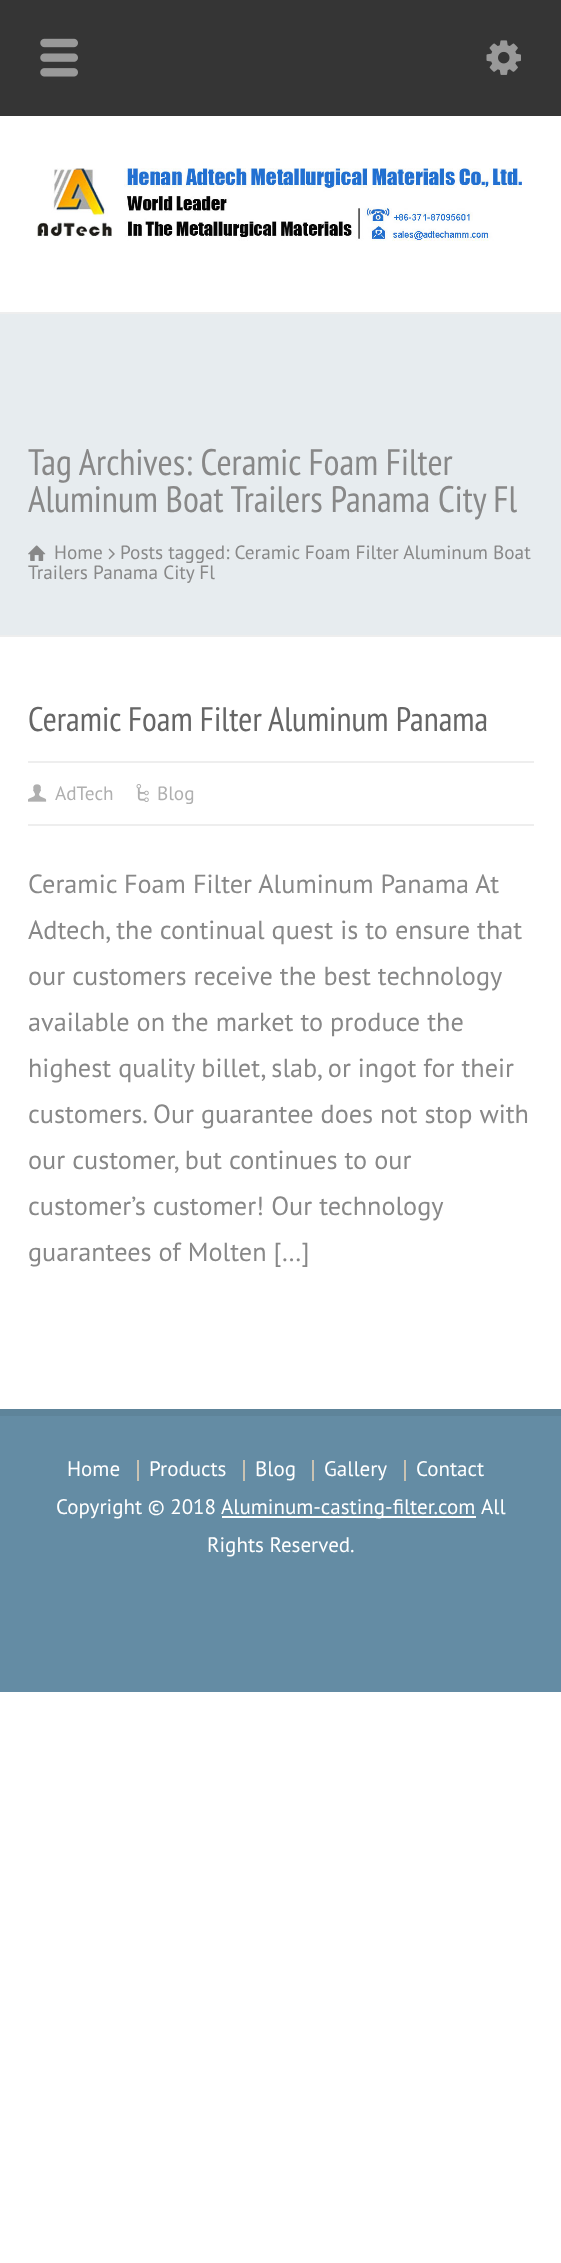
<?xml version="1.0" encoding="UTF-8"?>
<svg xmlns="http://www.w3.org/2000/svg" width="561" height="2263">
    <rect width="100%" height="100%" fill="#FFFFFF"/>
    <rect x="0" y="0" width="561" height="116" fill="#353535"/>
    <image x="40" y="38" width="38" height="39" href="img_01.png"/>
    <image x="486" y="40" width="35" height="35" href="img_02.png"/>
    <image x="36" y="168" width="486" height="73" href="img_03.png"/>
    <rect x="0" y="314" width="561" height="321" fill="#E7ECEF"/>
    <rect x="0" y="312" width="561" height="2" fill="#EEEEEE"/>
    <rect x="0" y="635" width="561" height="2" fill="#EEEEEE"/>
    <text font-family="PT Sans Narrow" font-size="36.75" fill="#888888">
        <tspan x="28" y="475">Tag Archives: Ceramic Foam Filter</tspan>
        <tspan x="28" y="512">Aluminum Boat Trailers Panama City Fl</tspan>
    </text>
    <image x="28" y="545" width="18" height="16" href="img_04.png"/>
    <text x="54" y="559" font-family="PT Sans" font-size="19.25" fill="#888888">Home</text>
    <image x="108" y="548" width="7" height="12" href="img_05.png"/>
    <text x="120" y="559" font-family="PT Sans" font-size="19.25" fill="#888888">Posts tagged: Ceramic Foam Filter Aluminum Boat</text>
    <text x="28" y="579" font-family="PT Sans" font-size="19.25" fill="#888888">Trailers Panama City Fl</text>
    <rect x="28" y="824" width="506" height="2" fill="#EEEEEE"/>
    <text x="28" y="731" font-family="PT Sans Narrow" font-size="34.1" fill="#666666">Ceramic Foam Filter Aluminum Panama</text>
    <rect x="28" y="761" width="506" height="2" fill="#EEEEEE"/>
    <image x="28" y="784" width="19" height="18" href="img_06.png"/>
    <text x="55" y="800" font-family="PT Sans" font-size="19.25" fill="#AFAFAF">AdTech</text>
    <image x="136" y="784" width="13" height="18" href="img_07.png"/>
    <text x="157" y="800" font-family="PT Sans" font-size="19.25" fill="#AFAFAF">Blog</text>
    <text font-family="PT Sans" font-size="26.25" fill="#888888">
        <tspan x="28" y="893">Ceramic Foam Filter Aluminum Panama At</tspan>
        <tspan x="28" y="939">Adtech, the continual quest is to ensure that</tspan>
        <tspan x="28" y="985">our customers receive the best technology</tspan>
        <tspan x="28" y="1031">available on the market to produce the</tspan>
        <tspan x="28" y="1077">highest quality billet, slab, or ingot for their</tspan>
        <tspan x="28" y="1123">customers. Our guarantee does not stop with</tspan>
        <tspan x="28" y="1169">our customer, but continues to our</tspan>
        <tspan x="28" y="1215">customer’s customer! Our technology</tspan>
        <tspan x="28" y="1261">guarantees of Molten […]</tspan>
    </text>
    <rect x="0" y="1416" width="561" height="276" fill="#648CA4"/>
    <rect x="0" y="1409" width="561" height="7" fill="#5E849A"/>
    <text x="67" y="1476" font-family="PT Sans" font-size="21" fill="#FFFFFF">Home</text>
    <rect x="137" y="1460" width="2" height="21" fill="#C9C3B3"/>
    <text x="149" y="1476" font-family="PT Sans" font-size="21" fill="#FFFFFF">Products</text>
    <rect x="243" y="1460" width="2" height="21" fill="#C9C3B3"/>
    <text x="255" y="1476" font-family="PT Sans" font-size="21" fill="#FFFFFF">Blog</text>
    <rect x="312" y="1460" width="2" height="21" fill="#C9C3B3"/>
    <text x="324" y="1476" font-family="PT Sans" font-size="21" fill="#FFFFFF">Gallery</text>
    <rect x="404" y="1460" width="2" height="21" fill="#C9C3B3"/>
    <text x="416" y="1476" font-family="PT Sans" font-size="21" fill="#FFFFFF">Contact</text>
    <text x="56" y="1514" font-family="PT Sans" font-size="21" fill="#FFFFFF">Copyright © 2018</text>
    <rect x="222" y="1516" width="254" height="2" fill="#FFFFFF"/>
    <text x="221" y="1514" font-family="PT Sans" font-size="21" fill="#FFFFFF">Aluminum-casting-filter.com</text>
    <text x="481" y="1514" font-family="PT Sans" font-size="21" fill="#FFFFFF">All</text>
    <text x="207" y="1552" font-family="PT Sans" font-size="21" fill="#FFFFFF">Rights Reserved.</text>
</svg>
